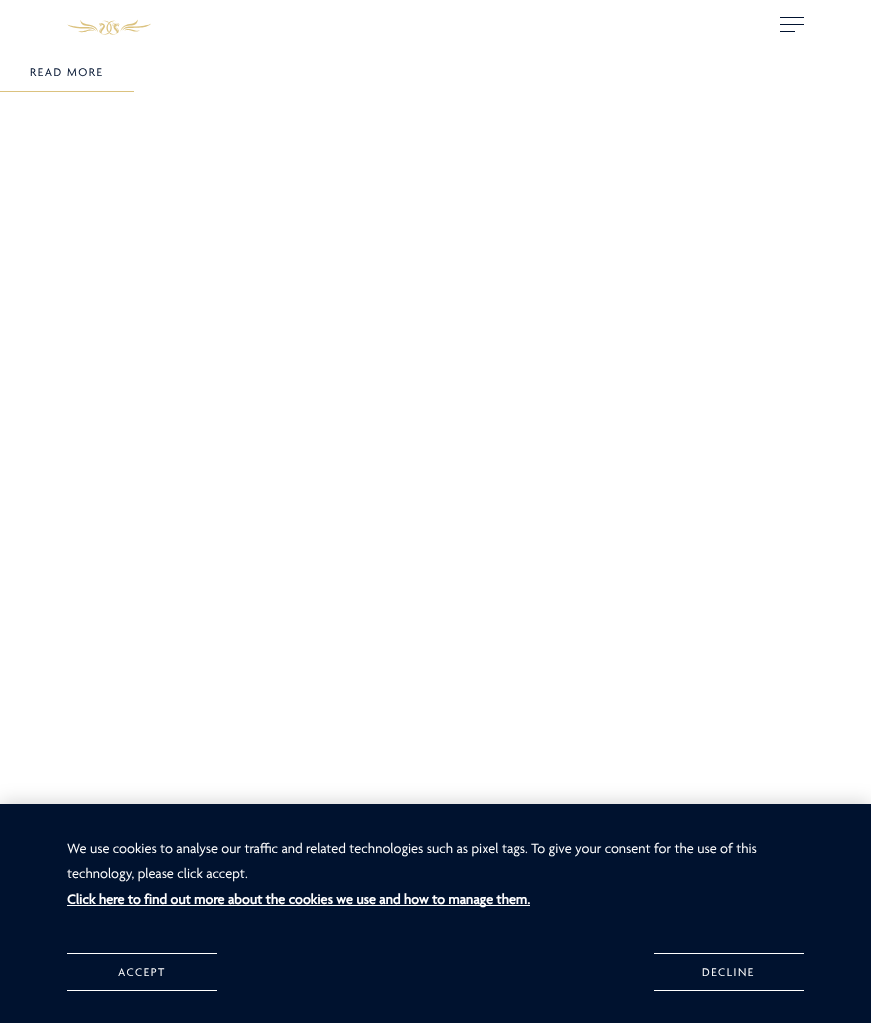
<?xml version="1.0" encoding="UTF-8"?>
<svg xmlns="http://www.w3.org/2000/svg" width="871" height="1023">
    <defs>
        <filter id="blur1" x="-50%" y="-200%" width="200%" height="500%"><feGaussianBlur stdDeviation="10"/></filter>
    </defs>
    <rect width="100%" height="100%" fill="#FFFFFF"/>
    <image x="67" y="19" width="84" height="16" href="img_01.png"/>
    <rect x="780" y="17" width="24" height="1" fill="#00122F"/>
    <rect x="780" y="24" width="24" height="1" fill="#00122F"/>
    <rect x="780" y="31" width="15" height="1" fill="#00122F"/>
    <text x="30" y="76" font-family="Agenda" font-size="12" letter-spacing="1.5" fill="#00122F">READ MORE</text>
    <rect x="0" y="91" width="134" height="1" fill="#DBC27F"/>
    <rect x="0" y="804" width="871" height="219" fill="#000000" fill-opacity="0.2" filter="url(#blur1)"/>
    <rect x="0" y="804" width="871" height="219" fill="#00122F"/>
    <text font-family="Agenda" font-size="14.4" fill="#FFFFFF">
        <tspan x="67" y="853">We use cookies to analyse our traffic and related technologies such as pixel tags. To give your consent for the use of this</tspan>
        <tspan x="67" y="878">technology, please click accept.</tspan>
    </text>
    <rect x="67" y="905" width="463" height="1" fill="#FFFFFF"/>
    <text x="67" y="904" font-family="Agenda" font-size="14.4" font-weight="700" fill="#FFFFFF">Click here to find out more about the cookies we use and how to manage them.</text>
    <rect x="67" y="953" width="150" height="1" fill="#FFFFFF"/>
    <text x="118" y="976" font-family="Agenda" font-size="12" letter-spacing="1.5" fill="#FFFFFF">ACCEPT</text>
    <rect x="67" y="990" width="150" height="1" fill="#FFFFFF"/>
    <rect x="654" y="953" width="150" height="1" fill="#FFFFFF"/>
    <text x="702" y="976" font-family="Agenda" font-size="12" letter-spacing="1.5" fill="#FFFFFF">DECLINE</text>
    <rect x="654" y="990" width="150" height="1" fill="#FFFFFF"/>
</svg>
